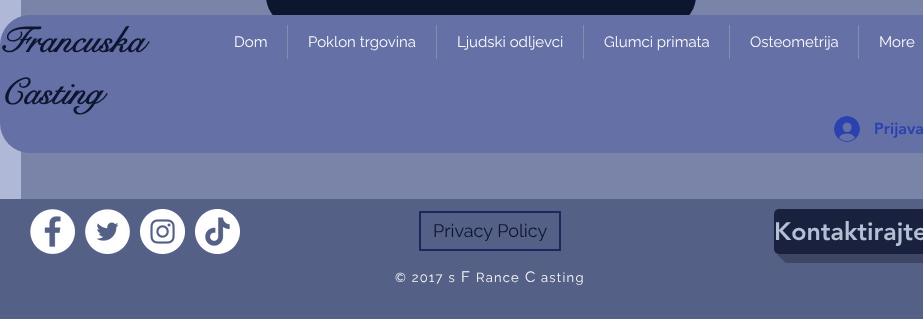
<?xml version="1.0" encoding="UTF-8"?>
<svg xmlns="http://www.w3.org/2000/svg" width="923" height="319">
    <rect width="100%" height="100%" fill="#AFB8D7"/>
    <rect x="21" y="0" width="902" height="199" fill="#7A84A8"/>
    <rect x="266" y="-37" width="430" height="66" rx="36.5" fill="#0D152F"/>
    <rect x="0" y="15" width="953" height="138" rx="30" fill="#6570A6"/>
    <text font-family="'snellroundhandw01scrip'" font-size="36" font-weight="700" fill="#0D152F">
        <tspan x="0" y="52">Francuska</tspan>
        <tspan x="0" y="104">Casting</tspan>
    </text>
    <text x="234" y="47" font-family="Raleway" font-size="15" fill="#FAFAFA">Dom</text>
    <rect x="287" y="25" width="1" height="34" fill="#848EAF"/>
    <text x="308" y="47" font-family="Raleway" font-size="15" fill="#FAFAFA">Poklon trgovina</text>
    <rect x="436" y="25" width="1" height="34" fill="#848EAF"/>
    <text x="457" y="47" font-family="Raleway" font-size="15" fill="#FAFAFA">Ljudski odljevci</text>
    <rect x="583" y="25" width="1" height="34" fill="#848EAF"/>
    <text x="604" y="47" font-family="Raleway" font-size="15" fill="#FAFAFA">Glumci primata</text>
    <rect x="729" y="25" width="1" height="34" fill="#848EAF"/>
    <text x="750" y="47" font-family="Raleway" font-size="15" fill="#FAFAFA">Osteometrija</text>
    <rect x="858" y="25" width="1" height="34" fill="#848EAF"/>
    <text x="879" y="47" font-family="Raleway" font-size="15" fill="#FAFAFA">More</text>
    <image x="834" y="116" width="26" height="26" href="img_01.png"/>
    <text x="874" y="134" font-family="'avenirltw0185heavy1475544'" font-size="16" font-weight="900" fill="#2A41B0">Prijava</text>
    <rect x="0" y="199" width="923" height="120" fill="#556086"/>
    <image x="30" y="209" width="45" height="45" href="img_02.png"/>
    <image x="85" y="209" width="45" height="45" href="img_03.png"/>
    <image x="140" y="209" width="45" height="45" href="img_04.png"/>
    <image x="195" y="209" width="45" height="45" href="img_05.png"/>
    <rect x="420" y="212" width="140" height="38" fill="none" stroke="#19295E" stroke-width="2"/>
    <text x="433" y="237" font-family="Raleway" font-size="18" fill="#0D152F">Privacy Policy</text>
    <path d="M 783 254 V 258 C 783 261 785 263 788 263 H 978 C 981 263 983 261 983 258 V 223 C 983 220 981 218 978 218 H 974 V 249 C 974 252 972 254 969 254 Z" fill="#3F4665"/>
    <path d="M 781 254 V 256 C 781 259 783 261 786 261 H 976 C 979 261 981 259 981 256 V 221 C 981 218 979 216 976 216 H 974 V 249 C 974 252 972 254 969 254 Z" fill="#3F4665"/>
    <path d="M 779 254 C 779 257 781 259 784 259 H 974 C 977 259 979 257 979 254 V 219 C 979 216 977 214 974 214 V 249 C 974 252 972 254 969 254 Z" fill="#3F4665"/>
    <path d="M 777 254 C 778 256 780 257 782 257 H 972 C 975 257 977 255 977 252 V 217 C 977 215 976 213 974 212 V 243 C 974 247 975 254 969 254 Z" fill="#3F4665"/>
    <path d="M 776 253 C 777 254 778 255 780 255 H 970 C 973 255 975 253 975 250 V 215 C 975 213 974 212 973 211 C 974 212 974 213 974 214 V 249 C 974 252 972 254 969 254 H 779 C 778 254 777 254 776 253 Z" fill="#3F4665"/>
    <rect x="774" y="209" width="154" height="45" rx="5" fill="#0D152F" fill-opacity="0.83"/>
    <text x="774" y="240" font-family="'avenirltw0185heavy1475544'" font-size="25" font-weight="900" fill="#B3C0D3">Kontaktirajte</text>
    <text x="395" y="282" font-family="Raleway" font-size="13" letter-spacing="1.25" fill="#FAFAFA">© 2017 s</text>
    <text x="461" y="282" font-family="Raleway" font-size="15" letter-spacing="1.25" fill="#FAFAFA">F</text>
    <text x="476" y="282" font-family="Raleway" font-size="13" letter-spacing="1.25" fill="#FAFAFA">Rance</text>
    <text x="525" y="282" font-family="Raleway" font-size="15" letter-spacing="1.25" fill="#FAFAFA">C</text>
    <text x="541" y="282" font-family="Raleway" font-size="13" letter-spacing="1.25" fill="#FAFAFA">asting</text>
</svg>
